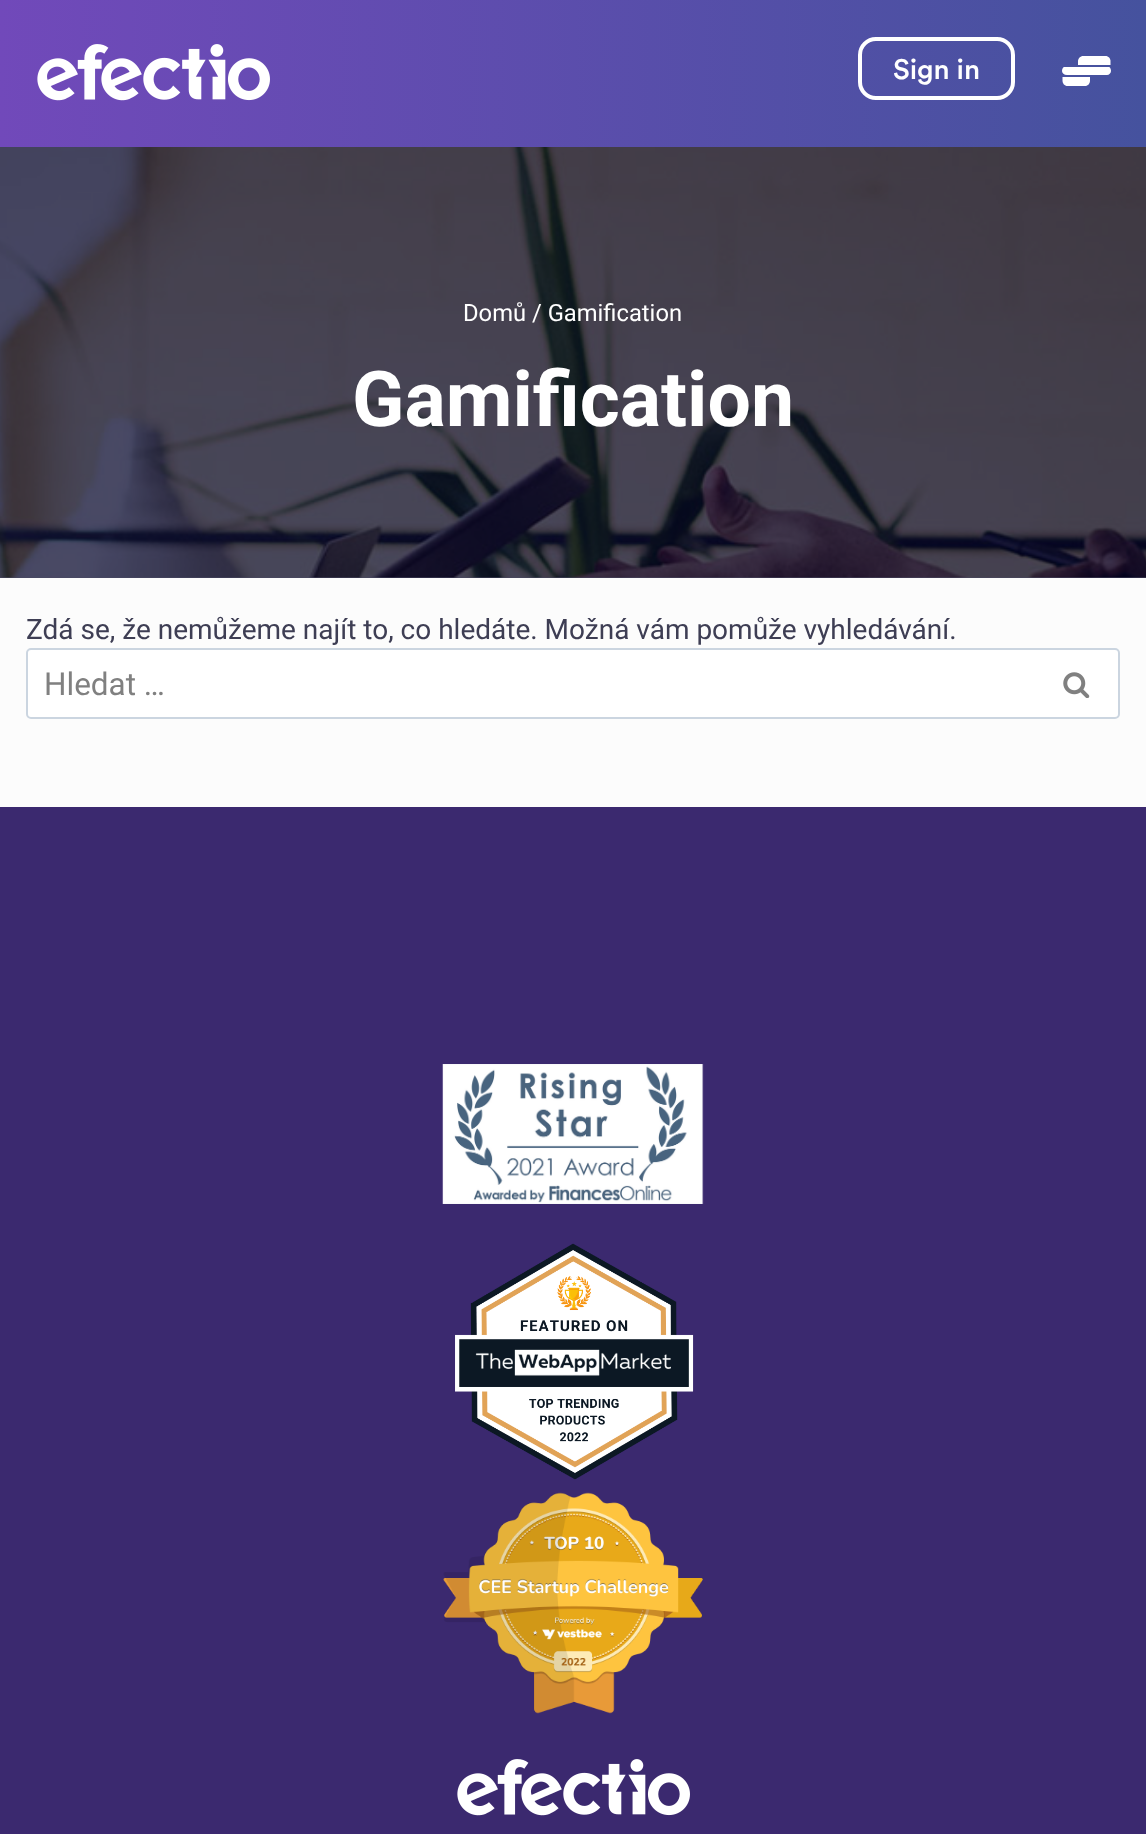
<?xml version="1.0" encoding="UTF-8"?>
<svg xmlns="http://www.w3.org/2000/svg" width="1146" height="1834">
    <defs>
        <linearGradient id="g1" gradientUnits="userSpaceOnUse" x1="0" y1="74" x2="1146" y2="73"><stop offset="0" stop-color="#7149BA"/><stop offset="1" stop-color="#45529E"/></linearGradient>
        <clipPath id="clip1"><rect x="1062" y="67" width="49" height="8"/></clipPath>
    </defs>
    <rect width="100%" height="100%" fill="#FCFCFC"/>
    <rect x="0" y="577" width="1146" height="1" fill="#484863"/>
    <rect x="0" y="0" width="1146" height="147" fill="url(#g1)"/>
    <image x="37" y="44" width="233" height="57" href="img_01.png"/>
    <rect x="860" y="39" width="153" height="59" rx="16" fill="none" stroke="#FFFFFF" stroke-width="4"/>
    <text x="893" y="79" font-family="Circular" font-size="28" font-weight="500" fill="#FFFFFF">Sign in</text>
    <path d="M 1078 61 C 1078 58.5 1080.5 56 1083 56 H 1105.5 C 1108.5 56 1110.5 58.5 1110.5 61 V 65 H 1078 Z" fill="#FFFFFF"/>
    <g clip-path="url(#clip1)">
        <path d="M 1111 71 C 1111 73 1109 75 1107 75 H 1067 C 1064 75 1062 73 1062 71 C 1062 68 1064 66 1067 66 H 1107 C 1109 66 1111 68 1111 71 Z" fill="#FFFFFF"/>
    </g>
    <path d="M 1090 80.5 C 1090 83.5 1088 86 1085 86 H 1067.5 C 1064.5 86 1062.5 83.5 1062.5 80.5 V 77 H 1090 Z" fill="#FFFFFF"/>
    <image x="0" y="147" width="1146" height="431" href="img_02.png"/>
    <text x="463" y="321" font-family="Roboto" font-size="23.75" fill="#FFFFFF">Domů / Gamification</text>
    <text x="352" y="426" font-family="Roboto" font-size="77" font-weight="700" fill="#FFFFFF">Gamification</text>
    <text x="26" y="639" font-family="Roboto" font-size="28" fill="#3E3E54">Zdá se, že nemůžeme najít to, co hledáte. Možná vám pomůže vyhledávání.</text>
    <rect x="27" y="649" width="1092" height="69" rx="4" fill="#FFFFFF" stroke="#CBD5E0" stroke-width="2"/>
    <text x="44" y="695" font-family="Roboto" font-size="31.5" fill="#808080">Hledat …</text>
    <image x="1063" y="672" width="27" height="26" href="img_03.png"/>
    <rect x="0" y="807" width="1146" height="1027" fill="#3B296F"/>
    <image x="442" y="1064" width="262" height="140" href="img_04.png"/>
    <image x="455" y="1243" width="239" height="237" href="img_05.png"/>
    <image x="443" y="1492" width="260" height="222" href="img_06.png"/>
    <image x="457" y="1759" width="233" height="57" href="img_07.png"/>
</svg>
